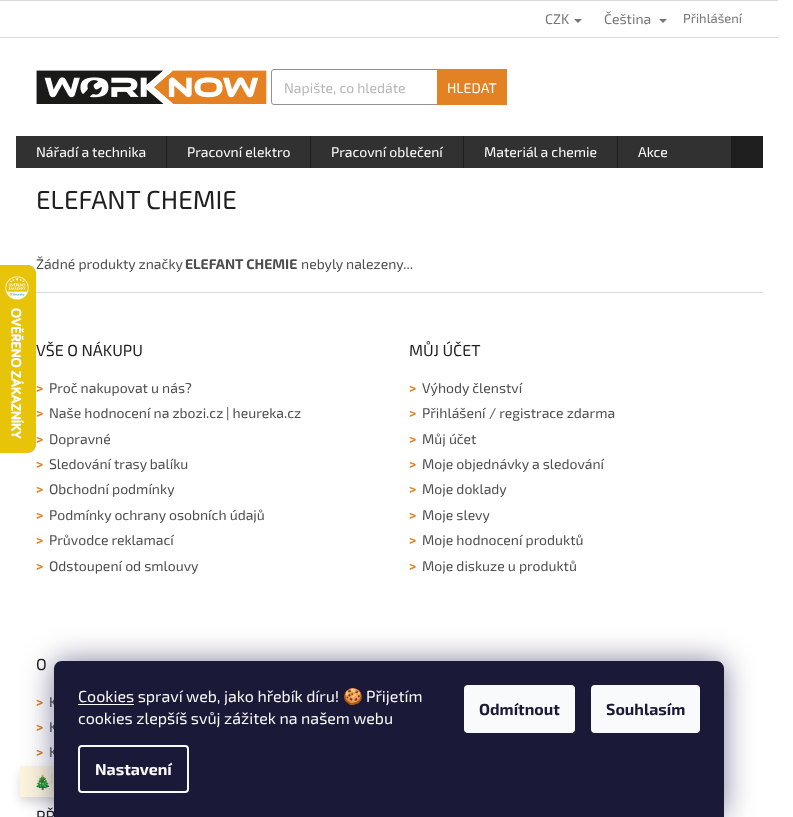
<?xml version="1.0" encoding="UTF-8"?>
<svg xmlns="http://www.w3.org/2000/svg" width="793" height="817">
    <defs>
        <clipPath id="clip1"><path d="M 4 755 H 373 V 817 H 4 Z M 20 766 H 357 V 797 H 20 Z" clip-rule="evenodd"/></clipPath>
        <filter id="blur1" x="-50%" y="-200%" width="200%" height="500%"><feGaussianBlur stdDeviation="5"/></filter>
        <filter id="blur2" x="-50%" y="-200%" width="200%" height="500%"><feGaussianBlur stdDeviation="15"/></filter>
    </defs>
    <rect width="100%" height="100%" fill="#FFFFFF"/>
    <rect x="20" y="766" width="34" height="31" fill="#FDF4DE"/>
    <image x="0" y="265" width="36" height="188" href="img_01.png"/>
    <rect x="0" y="0" width="778" height="1" fill="#DADADA"/>
    <rect x="0" y="37" width="778" height="1" fill="#DADADA"/>
    <text x="545" y="24" font-family="'Exo 2'" font-size="14" fill="#767676">CZK</text>
    <path d="M 574 19 H 582 L 578 23 Z" fill="#767676"/>
    <text x="604" y="24" font-family="'Exo 2'" font-size="14" fill="#767676">Čeština</text>
    <path d="M 659 19 H 667 L 663 23 Z" fill="#767676"/>
    <text x="683" y="23" font-family="'Exo 2'" font-size="13" fill="#767676">Přihlášení</text>
    <image x="36" y="70" width="231" height="34" href="img_02.png"/>
    <rect x="271.5" y="69.5" width="235" height="35" rx="2.5" fill="none" stroke="#919191"/>
    <text x="284" y="93" font-family="'Exo 2'" font-size="14" fill="#B6B6B6">Napište, co hledáte</text>
    <rect x="437" y="69" width="70" height="36" fill="#E38224"/>
    <text x="447" y="93" font-family="'Exo 2'" font-size="14" fill="#FFFFFF">HLEDAT</text>
    <rect x="16" y="136" width="715" height="32" fill="#313131"/>
    <text x="36" y="157" font-family="'Exo 2'" font-size="14" fill="#FFFFFF">Nářadí a technika</text>
    <rect x="166" y="136" width="1" height="32" fill="#1F1F1F"/>
    <text x="187" y="157" font-family="'Exo 2'" font-size="14" fill="#FFFFFF">Pracovní elektro</text>
    <rect x="310" y="136" width="1" height="32" fill="#1F1F1F"/>
    <text x="331" y="157" font-family="'Exo 2'" font-size="14" fill="#FFFFFF">Pracovní oblečení</text>
    <rect x="463" y="136" width="1" height="32" fill="#1F1F1F"/>
    <text x="484" y="157" font-family="'Exo 2'" font-size="14" fill="#FFFFFF">Materiál a chemie</text>
    <rect x="617" y="136" width="1" height="32" fill="#1F1F1F"/>
    <text x="638" y="157" font-family="'Exo 2'" font-size="14" fill="#FFFFFF">Akce</text>
    <rect x="731" y="136" width="32" height="32" fill="#1F1F1F"/>
    <text x="36" y="209" font-family="'Exo 2'" font-size="26" fill="#1F1F1F">ELEFANT CHEMIE</text>
    <text x="36" y="269" font-family="'Exo 2'" font-size="14" fill="#4D4D4D">Žádné produkty značky</text>
    <text x="185" y="269" font-family="'Exo 2'" font-size="14" font-weight="700" fill="#4D4D4D">ELEFANT CHEMIE</text>
    <text x="301" y="269" font-family="'Exo 2'" font-size="14" fill="#4D4D4D">nebyly nalezeny...</text>
    <rect x="36" y="292" width="727" height="1" fill="#DADADA"/>
    <text x="36" y="356" font-family="'Exo 2'" font-size="16" fill="#1F1F1F">VŠE O NÁKUPU</text>
    <text x="36" y="393" font-family="'Exo 2'" font-size="14" font-weight="700" fill="#E38224">&gt;</text>
    <text x="49" y="393" font-family="'Exo 2'" font-size="14" fill="#4D4D4D">Proč nakupovat u nás?</text>
    <text x="36" y="418" font-family="'Exo 2'" font-size="14" font-weight="700" fill="#E38224">&gt;</text>
    <text x="49" y="418" font-family="'Exo 2'" font-size="14" fill="#4D4D4D">Naše hodnocení na zbozi.cz</text>
    <text x="226" y="418" font-family="'Exo 2'" font-size="14" fill="#4D4D4D">| heureka.cz</text>
    <text x="36" y="444" font-family="'Exo 2'" font-size="14" font-weight="700" fill="#E38224">&gt;</text>
    <text x="49" y="444" font-family="'Exo 2'" font-size="14" fill="#4D4D4D">Dopravné</text>
    <text x="36" y="469" font-family="'Exo 2'" font-size="14" font-weight="700" fill="#E38224">&gt;</text>
    <text x="49" y="469" font-family="'Exo 2'" font-size="14" fill="#4D4D4D">Sledování trasy balíku</text>
    <text x="36" y="494" font-family="'Exo 2'" font-size="14" font-weight="700" fill="#E38224">&gt;</text>
    <text x="49" y="494" font-family="'Exo 2'" font-size="14" fill="#4D4D4D">Obchodní podmínky</text>
    <text x="36" y="520" font-family="'Exo 2'" font-size="14" font-weight="700" fill="#E38224">&gt;</text>
    <text x="49" y="520" font-family="'Exo 2'" font-size="14" fill="#4D4D4D">Podmínky ochrany osobních údajů</text>
    <text x="36" y="545" font-family="'Exo 2'" font-size="14" font-weight="700" fill="#E38224">&gt;</text>
    <text x="49" y="545" font-family="'Exo 2'" font-size="14" fill="#4D4D4D">Průvodce reklamací</text>
    <text x="36" y="571" font-family="'Exo 2'" font-size="14" font-weight="700" fill="#E38224">&gt;</text>
    <text x="49" y="571" font-family="'Exo 2'" font-size="14" fill="#4D4D4D">Odstoupení od smlouvy</text>
    <text x="409" y="356" font-family="'Exo 2'" font-size="16" fill="#1F1F1F">MŮJ ÚČET</text>
    <text x="409" y="393" font-family="'Exo 2'" font-size="14" font-weight="700" fill="#E38224">&gt;</text>
    <text x="422" y="393" font-family="'Exo 2'" font-size="14" fill="#4D4D4D">Výhody členství</text>
    <text x="409" y="418" font-family="'Exo 2'" font-size="14" font-weight="700" fill="#E38224">&gt;</text>
    <text x="422" y="418" font-family="'Exo 2'" font-size="14" fill="#4D4D4D">Přihlášení</text>
    <text x="489" y="418" font-family="'Exo 2'" font-size="14" fill="#4D4D4D">/ registrace zdarma</text>
    <text x="409" y="444" font-family="'Exo 2'" font-size="14" font-weight="700" fill="#E38224">&gt;</text>
    <text x="422" y="444" font-family="'Exo 2'" font-size="14" fill="#4D4D4D">Můj účet</text>
    <text x="409" y="469" font-family="'Exo 2'" font-size="14" font-weight="700" fill="#E38224">&gt;</text>
    <text x="422" y="469" font-family="'Exo 2'" font-size="14" fill="#4D4D4D">Moje objednávky a sledování</text>
    <text x="409" y="494" font-family="'Exo 2'" font-size="14" font-weight="700" fill="#E38224">&gt;</text>
    <text x="422" y="494" font-family="'Exo 2'" font-size="14" fill="#4D4D4D">Moje doklady</text>
    <text x="409" y="520" font-family="'Exo 2'" font-size="14" font-weight="700" fill="#E38224">&gt;</text>
    <text x="422" y="520" font-family="'Exo 2'" font-size="14" fill="#4D4D4D">Moje slevy</text>
    <text x="409" y="545" font-family="'Exo 2'" font-size="14" font-weight="700" fill="#E38224">&gt;</text>
    <text x="422" y="545" font-family="'Exo 2'" font-size="14" fill="#4D4D4D">Moje hodnocení produktů</text>
    <text x="409" y="571" font-family="'Exo 2'" font-size="14" font-weight="700" fill="#E38224">&gt;</text>
    <text x="422" y="571" font-family="'Exo 2'" font-size="14" fill="#4D4D4D">Moje diskuze u produktů</text>
    <text x="36" y="670" font-family="'Exo 2'" font-size="16" fill="#1F1F1F">O</text>
    <text x="36" y="707" font-family="'Exo 2'" font-size="14" font-weight="700" fill="#E38224">&gt;</text>
    <text x="49" y="707" font-family="'Exo 2'" font-size="14" fill="#4D4D4D">K</text>
    <text x="36" y="732" font-family="'Exo 2'" font-size="14" font-weight="700" fill="#E38224">&gt;</text>
    <text x="49" y="732" font-family="'Exo 2'" font-size="14" fill="#4D4D4D">K</text>
    <text x="36" y="757" font-family="'Exo 2'" font-size="14" font-weight="700" fill="#E38224">&gt;</text>
    <text x="49" y="757" font-family="'Exo 2'" font-size="14" fill="#4D4D4D">K</text>
    <text x="36" y="783" font-family="'Exo 2'" font-size="14" font-weight="700" fill="#FAE8C8">&gt;</text>
    <text x="49" y="783" font-family="'Exo 2'" font-size="14" fill="#EBE2CC">J</text>
    <text x="36" y="822" font-family="'Exo 2'" font-size="16" fill="#1F1F1F">PŘ</text>
    <g clip-path="url(#clip1)">
        <rect x="20" y="771" width="337" height="31" fill="#000000" fill-opacity="0.14" filter="url(#blur1)"/>
    </g>
    <text x="34" y="787" font-family="Noto Color Emoji" font-size="14" fill="#191816">🎄</text>
    <rect x="54" y="661" width="670" height="156" rx="8" fill="#1B1939" fill-opacity="0.5" filter="url(#blur2)"/>
    <path d="M 62 661 H 716 C 720.5 661 724 664.5 724 669 V 817 H 54 V 669 C 54 664.5 57.5 661 62 661 Z" fill="#1A1937"/>
    <rect x="78" y="704" width="56" height="1" fill="#F8FAFB"/>
    <text x="78" y="702" font-family="'Exo 2'" font-size="16" fill="#F8FAFB">Cookies spraví web, jako hřebík díru!</text>
    <text x="343" y="702" font-family="Noto Color Emoji" font-size="16" fill="#F8FAFB">🍪</text>
    <text x="366" y="702" font-family="'Exo 2'" font-size="16" fill="#F8FAFB">Přijetím</text>
    <text x="78" y="724" font-family="'Exo 2'" font-size="16" fill="#F8FAFB">cookies zlepšíš svůj zážitek na našem webu</text>
    <rect x="79" y="746" width="109" height="46" rx="3" fill="none" stroke="#F8FAFB" stroke-width="2"/>
    <text x="95" y="775" font-family="'Exo 2'" font-size="16" font-weight="700" fill="#F8FAFB">Nastavení</text>
    <rect x="464" y="685" width="111" height="48" rx="4" fill="#F8FAFB"/>
    <text x="479" y="715" font-family="'Exo 2'" font-size="16" font-weight="700" fill="#1A1937">Odmítnout</text>
    <rect x="591" y="685" width="109" height="48" rx="4" fill="#F8FAFB"/>
    <text x="606" y="715" font-family="'Exo 2'" font-size="16" font-weight="700" fill="#1A1937">Souhlasím</text>
</svg>
